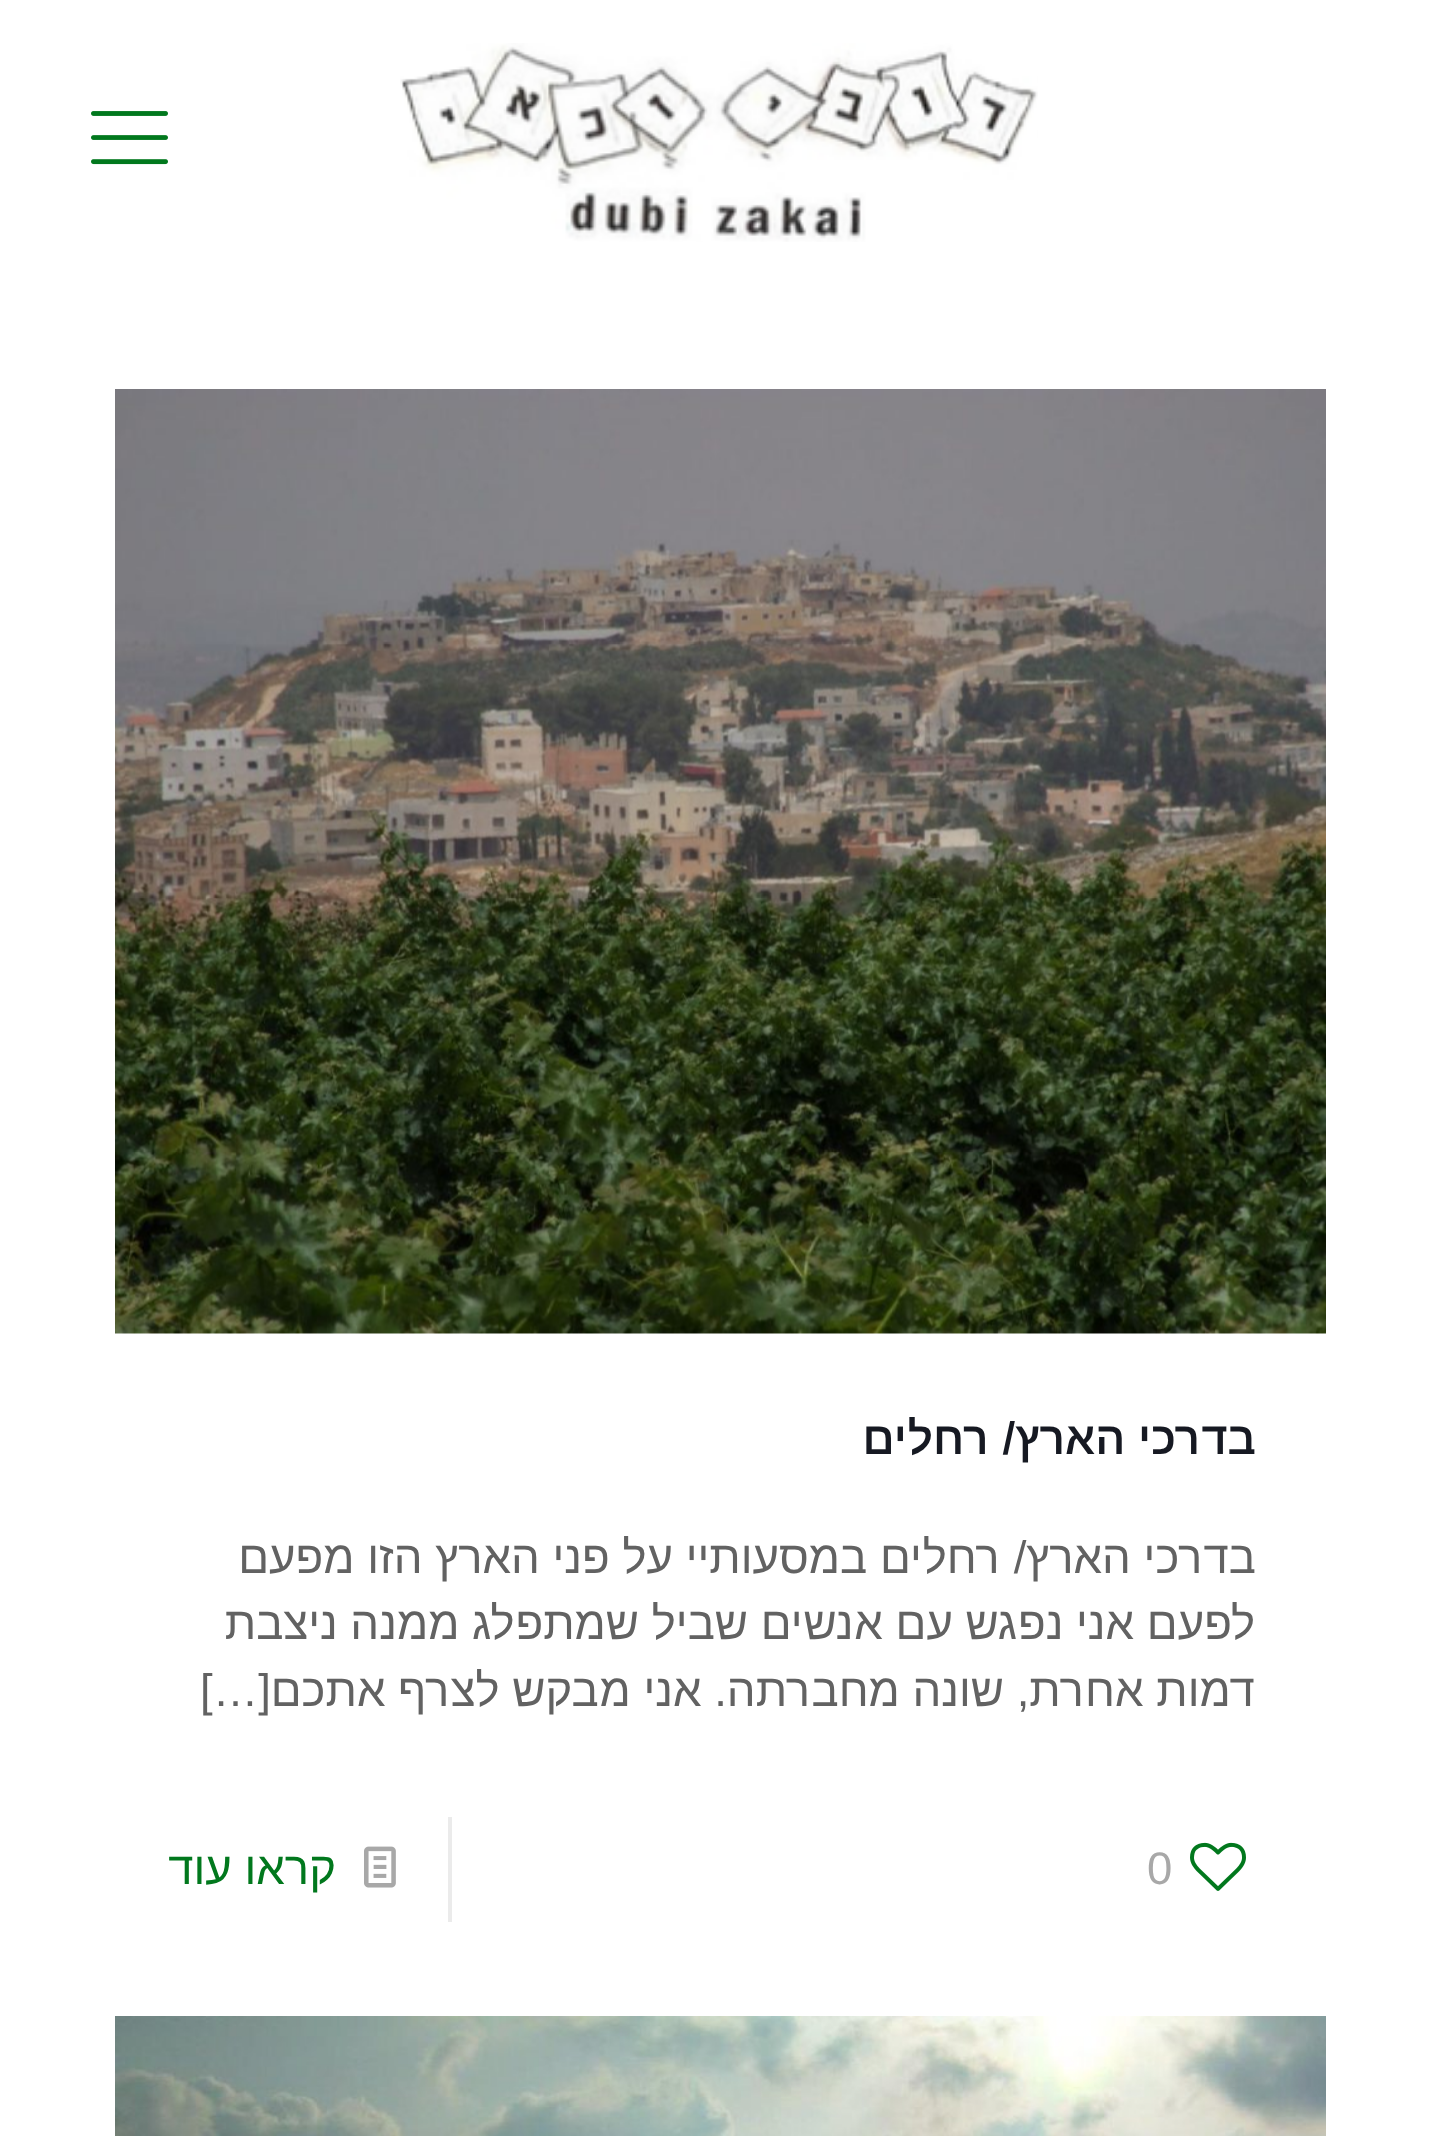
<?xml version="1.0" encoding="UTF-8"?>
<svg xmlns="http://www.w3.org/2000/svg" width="1441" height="2136">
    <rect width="100%" height="100%" fill="#FFFFFF"/>
    <image x="400" y="43" width="638" height="199" href="img_01.png"/>
    <image x="91" y="111" width="77" height="54" href="img_02.png"/>
    <image x="115" y="389" width="1211" height="945" href="img_03.png"/>
    <text x="1256" y="1454" font-family="Arimo" font-size="45.5" font-weight="600" direction="rtl" fill="#161922">בדרכי הארץ/ רחלים</text>
    <text font-family="Arimo" font-size="45.5" direction="rtl" fill="#626262">
        <tspan x="1256" y="1573">בדרכי הארץ/ רחלים במסעותיי על פני הארץ הזו מפעם</tspan>
        <tspan x="1256" y="1639">לפעם אני נפגש עם אנשים שביל שמתפלג ממנה ניצבת</tspan>
        <tspan x="1256" y="1706">דמות אחרת, שונה מחברתה. אני מבקש לצרף אתכם</tspan>
    </text>
    <text x="200" y="1706" font-family="Arimo" font-size="45.5" fill="#626262">[…]</text>
    <image x="1190" y="1842" width="56" height="49" href="img_04.png"/>
    <text x="1147" y="1884" font-family="Arimo" font-size="45.5" fill="#A8A8A8">0</text>
    <rect x="448" y="1817" width="4" height="105" fill="#EBEBEB"/>
    <image x="364" y="1846" width="32" height="42" href="img_05.png"/>
    <text x="336" y="1884" font-family="Arimo" font-size="45.5" direction="rtl" fill="#01781D">קראו עוד</text>
    <image x="115" y="2016" width="1211" height="120" href="img_06.png"/>
</svg>
